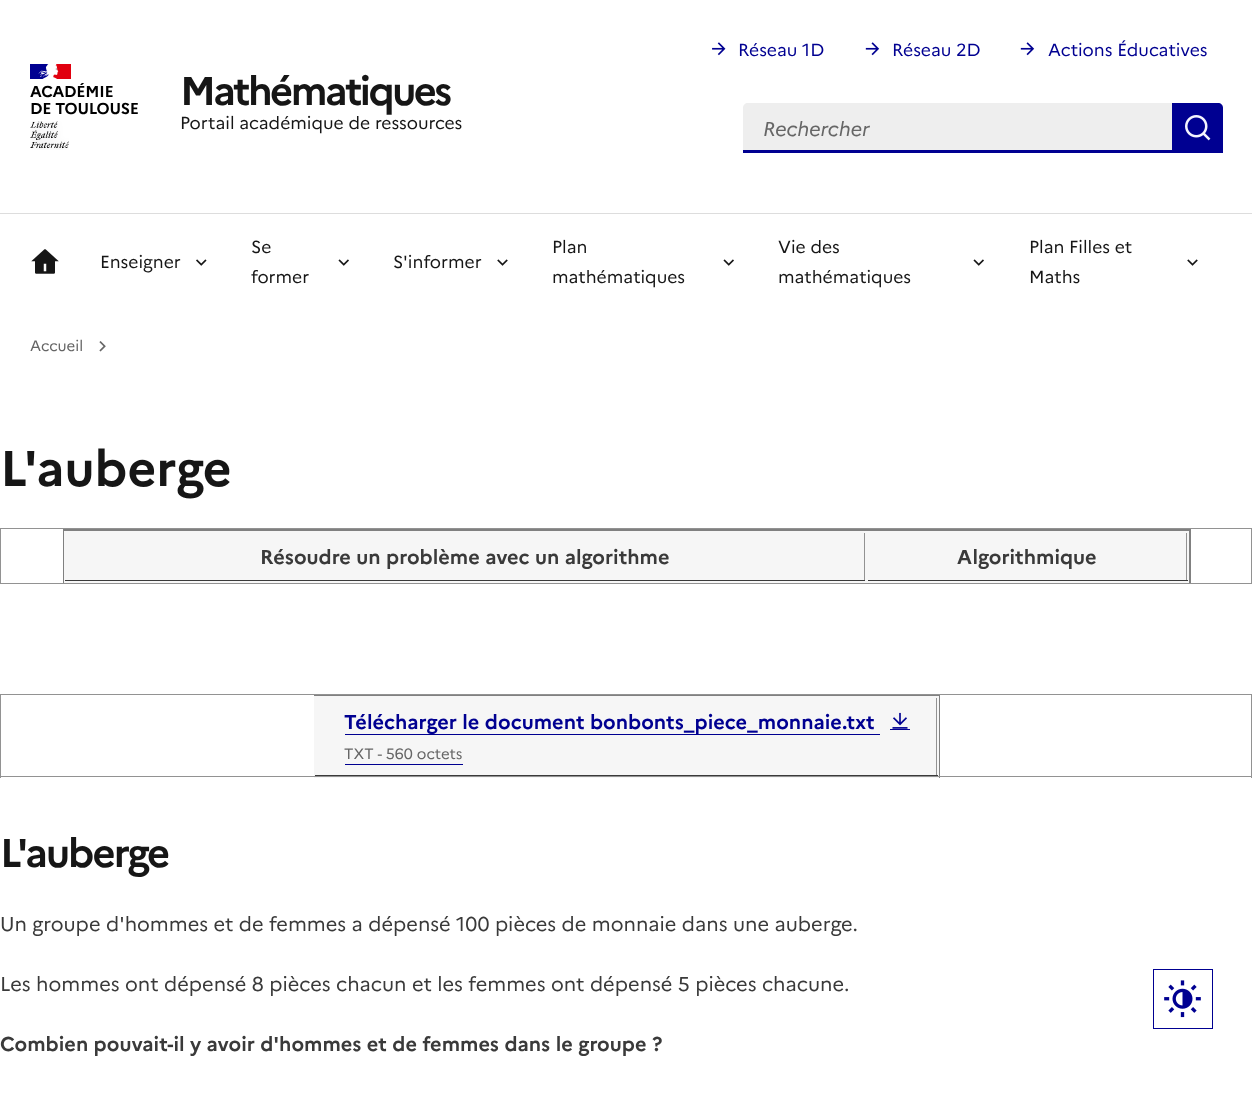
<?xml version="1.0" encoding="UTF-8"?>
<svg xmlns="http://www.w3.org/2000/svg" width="1252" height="1098">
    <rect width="100%" height="100%" fill="#FFFFFF"/>
    <rect x="30" y="64" width="19" height="15" fill="#000091"/>
    <rect x="53" y="64" width="18" height="15" fill="#E1000F"/>
    <image x="38" y="64" width="21" height="15" href="img_01.png"/>
    <text font-family="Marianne" font-size="15.75" font-weight="700" letter-spacing="-0.25" fill="#000000">
        <tspan x="30" y="97">ACADÉMIE</tspan>
        <tspan x="30" y="114">DE TOULOUSE</tspan>
    </text>
    <image x="30" y="121" width="39" height="29" href="img_02.png"/>
    <text x="180" y="105" font-family="Marianne" font-size="40" font-weight="700" letter-spacing="-2.5" fill="#161616">Mathématiques</text>
    <text x="180" y="129" font-family="Marianne" font-size="17.5" fill="#161616">Portail académique de ressources</text>
    <image x="712" y="42" width="14" height="14" href="img_03.png"/>
    <text x="738" y="56" font-family="Marianne" font-size="17.5" fill="#000091">Réseau 1D</text>
    <image x="865" y="42" width="15" height="14" href="img_04.png"/>
    <text x="892" y="56" font-family="Marianne" font-size="17.5" fill="#000091">Réseau 2D</text>
    <image x="1020" y="42" width="15" height="14" href="img_04.png"/>
    <text x="1048" y="56" font-family="Marianne" font-size="17.5" fill="#000091">Actions Éducatives</text>
    <path d="M 748 103 H 1173 V 153 H 743 V 108 C 743 105 745 103 748 103 Z" fill="#EEEEEE"/>
    <path d="M 743 150 V 153 H 1173 V 103 H 1172 V 150 Z" fill="#000091"/>
    <text x="763" y="136" font-family="Marianne" font-size="20" font-style="italic" fill="#666666">Rechercher</text>
    <path d="M 1173 103 H 1218 C 1221 103 1223 105 1223 108 V 153 H 1173 Z" fill="#000091"/>
    <image x="1185" y="115" width="26" height="26" href="img_05.png"/>
    <rect x="0" y="213" width="1252" height="1" fill="#DDDDDD"/>
    <image x="31" y="249" width="28" height="25" href="img_06.png"/>
    <text x="100" y="268" font-family="Marianne" font-size="17.5" fill="#161616">Enseigner</text>
    <image x="196" y="259" width="11" height="7" href="img_07.png"/>
    <text font-family="Marianne" font-size="17.5" fill="#161616">
        <tspan x="251" y="253">Se</tspan>
        <tspan x="251" y="283">former</tspan>
    </text>
    <image x="338" y="259" width="11" height="7" href="img_08.png"/>
    <text x="393" y="268" font-family="Marianne" font-size="17.5" fill="#161616">S'informer</text>
    <image x="497" y="259" width="11" height="7" href="img_09.png"/>
    <text font-family="Marianne" font-size="17.5" fill="#161616">
        <tspan x="552" y="253">Plan</tspan>
        <tspan x="552" y="283">mathématiques</tspan>
    </text>
    <image x="723" y="259" width="11" height="7" href="img_08.png"/>
    <text font-family="Marianne" font-size="17.5" fill="#161616">
        <tspan x="778" y="253">Vie des</tspan>
        <tspan x="778" y="283">mathématiques</tspan>
    </text>
    <image x="973" y="259" width="11" height="7" href="img_08.png"/>
    <text font-family="Marianne" font-size="17.5" fill="#161616">
        <tspan x="1029" y="253">Plan Filles et</tspan>
        <tspan x="1029" y="283">Maths</tspan>
    </text>
    <image x="1187" y="259" width="11" height="7" href="img_09.png"/>
    <text x="30" y="351" font-family="Marianne" font-size="15" fill="#666666">Accueil</text>
    <image x="99" y="341" width="7" height="11" href="img_10.png"/>
    <text x="0" y="486" font-family="Marianne" font-size="50" font-weight="700" fill="#161616">L'auberge</text>
    <rect x="63" y="529" width="1127" height="2" fill="#808080"/>
    <rect x="1188" y="528" width="3" height="56" fill="#808080"/>
    <rect x="63" y="528" width="3" height="56" fill="#808080"/>
    <rect x="0" y="583" width="1252" height="1" fill="#929292"/>
    <rect x="1251" y="528" width="1" height="56" fill="#929292"/>
    <rect x="0" y="528" width="1" height="56" fill="#929292"/>
    <rect x="0" y="528" width="1252" height="1" fill="#929292"/>
    <rect x="64" y="531" width="1125" height="52" fill="#F6F6F6"/>
    <rect x="864" y="533" width="1" height="48" fill="#929292"/>
    <rect x="65" y="580" width="800" height="1" fill="#3A3A3A"/>
    <text x="260" y="564" font-family="Marianne" font-size="20" font-weight="700" fill="#3A3A3A">Résoudre un problème avec un algorithme</text>
    <rect x="1186" y="533" width="1" height="48" fill="#929292"/>
    <rect x="868" y="580" width="320" height="1" fill="#3A3A3A"/>
    <text x="957" y="564" font-family="Marianne" font-size="20" font-weight="700" fill="#3A3A3A">Algorithmique</text>
    <rect x="939" y="694" width="1" height="84" fill="#808080"/>
    <rect x="314" y="696" width="625" height="82" fill="#F6F6F6"/>
    <rect x="0" y="776" width="1252" height="1" fill="#929292"/>
    <rect x="1251" y="694" width="1" height="84" fill="#929292"/>
    <rect x="0" y="694" width="1" height="84" fill="#929292"/>
    <rect x="0" y="694" width="1252" height="1" fill="#929292"/>
    <rect x="314" y="695" width="626" height="1" fill="#808080"/>
    <rect x="936" y="698" width="1" height="78" fill="#929292"/>
    <rect x="315" y="775" width="623" height="1" fill="#3A3A3A"/>
    <rect x="345" y="734" width="535" height="1" fill="#000091"/>
    <rect x="345" y="764" width="118" height="1" fill="#000091"/>
    <rect x="890" y="729" width="20" height="1" fill="#000091"/>
    <text x="344" y="729" font-family="Marianne" font-size="20" font-weight="700" fill="#000091">Télécharger le document bonbonts_piece_monnaie.txt</text>
    <image x="892" y="712" width="16" height="17" href="img_11.png"/>
    <text x="344" y="759" font-family="Marianne" font-size="15" fill="#666666">TXT - 560 octets</text>
    <text x="0" y="867" font-family="Marianne" font-size="40" font-weight="700" letter-spacing="-1.9" fill="#161616">L'auberge</text>
    <text x="0" y="931" font-family="Marianne" font-size="20" fill="#3A3A3A">Un groupe d'hommes et de femmes a dépensé 100 pièces de monnaie dans une auberge.</text>
    <text x="0" y="991" font-family="Marianne" font-size="20" fill="#3A3A3A">Les hommes ont dépensé 8 pièces chacun et les femmes ont dépensé 5 pièces chacune.</text>
    <text x="0" y="1051" font-family="Marianne" font-size="20" font-weight="700" fill="#3A3A3A">Combien pouvait-il y avoir d'hommes et de femmes dans le groupe ?</text>
    <rect x="1153.5" y="969.5" width="59" height="59" fill="none" stroke="#000091"/>
    <image x="1164" y="980" width="37" height="38" href="img_12.png"/>
</svg>
